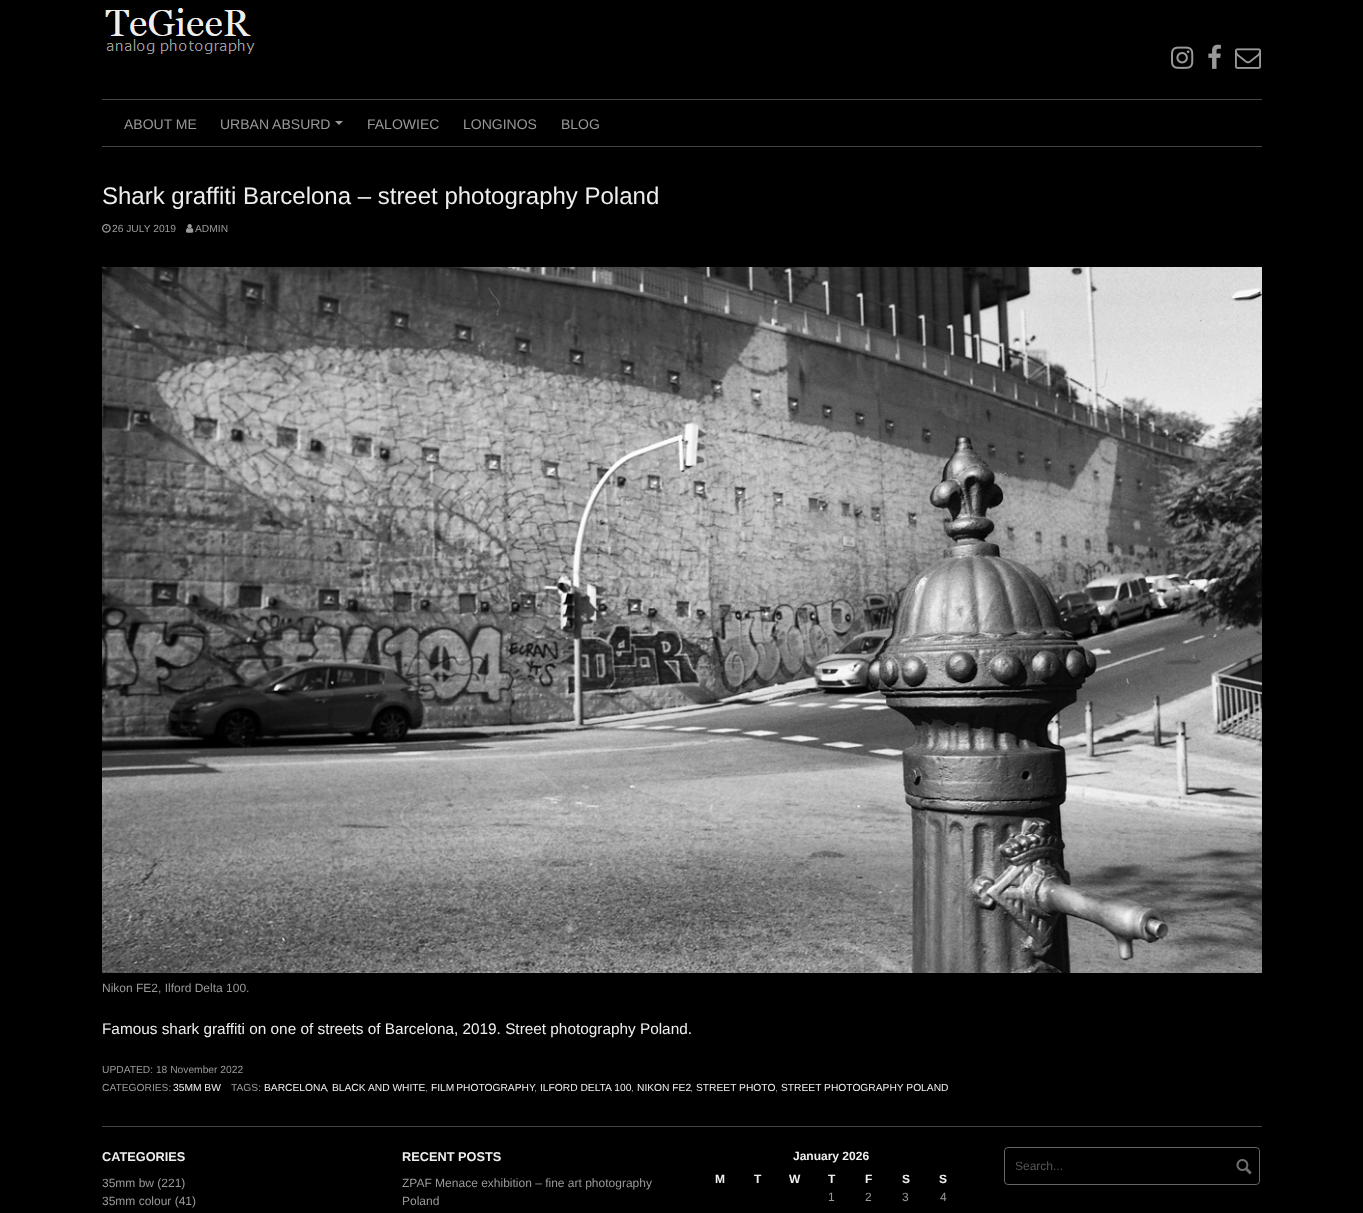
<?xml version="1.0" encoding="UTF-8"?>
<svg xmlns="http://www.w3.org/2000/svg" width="1363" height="1213">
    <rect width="100%" height="100%" fill="#000000"/>
    <image x="105" y="8" width="150" height="46" href="img_01.png"/>
    <image x="1171" y="46" width="23" height="23" href="img_02.png"/>
    <image x="1208" y="44" width="13" height="25" href="img_03.png"/>
    <image x="1235" y="48" width="26" height="21" href="img_04.png"/>
    <rect x="102" y="99" width="1160" height="1" fill="#444444"/>
    <rect x="102" y="146" width="1160" height="1" fill="#444444"/>
    <text x="124" y="129" font-family="Liberation Sans" font-size="14" fill="#999999">ABOUT ME</text>
    <text x="220" y="129" font-family="Liberation Sans" font-size="14" fill="#999999">URBAN ABSURD</text>
    <path d="M 335 121 H 343 L 339 125 Z" fill="#999999"/>
    <text x="367" y="129" font-family="Liberation Sans" font-size="14" fill="#999999">FALOWIEC</text>
    <text x="463" y="129" font-family="Liberation Sans" font-size="14" fill="#999999">LONGINOS</text>
    <text x="561" y="129" font-family="Liberation Sans" font-size="14" fill="#999999">BLOG</text>
    <text x="102" y="204" font-family="Liberation Sans" font-size="24" fill="#EEEEEE">Shark graffiti Barcelona – street photography Poland</text>
    <image x="102" y="224" width="9" height="9" href="img_05.png"/>
    <text x="112" y="232" font-family="Liberation Sans" font-size="10.25" fill="#999999">26 JULY 2019</text>
    <image x="186" y="224" width="8" height="9" href="img_06.png"/>
    <text x="195" y="232" font-family="Liberation Sans" font-size="10.25" fill="#999999">ADMIN</text>
    <image x="102" y="267" width="1160" height="706" href="img_07.png"/>
    <text x="102" y="992" font-family="Liberation Sans" font-size="12" fill="#999999">Nikon FE2, Ilford Delta 100.</text>
    <text x="102" y="1034" font-family="Liberation Sans" font-size="15.35" fill="#EEEEEE">Famous shark graffiti on one of streets of Barcelona, 2019. Street photography Poland.</text>
    <text font-family="Liberation Sans" font-size="10.25" fill="#999999">
        <tspan x="102" y="1073">UPDATED: 18 November 2022</tspan>
        <tspan x="102" y="1091">CATEGORIES:</tspan>
    </text>
    <text x="173" y="1091" font-family="Liberation Sans" font-size="10.25" fill="#EEEEEE">35MM BW</text>
    <text x="231" y="1091" font-family="Liberation Sans" font-size="10.25" fill="#999999">TAGS:</text>
    <text x="264" y="1091" font-family="Liberation Sans" font-size="10.25" fill="#EEEEEE">BARCELONA</text>
    <text x="326" y="1091" font-family="Liberation Sans" font-size="10.25" fill="#999999">,</text>
    <text x="332" y="1091" font-family="Liberation Sans" font-size="10.25" fill="#EEEEEE">BLACK AND WHITE</text>
    <text x="425" y="1091" font-family="Liberation Sans" font-size="10.25" fill="#999999">,</text>
    <text x="431" y="1091" word-spacing="-1" font-family="Liberation Sans" font-size="10.25" fill="#EEEEEE">FILM PHOTOGRAPHY</text>
    <text x="534" y="1091" font-family="Liberation Sans" font-size="10.25" fill="#999999">,</text>
    <text x="540" y="1091" font-family="Liberation Sans" font-size="10.25" fill="#EEEEEE">ILFORD DELTA 100</text>
    <text x="631" y="1091" font-family="Liberation Sans" font-size="10.25" fill="#999999">,</text>
    <text x="637" y="1091" font-family="Liberation Sans" font-size="10.25" fill="#EEEEEE">NIKON FE2</text>
    <text x="690" y="1091" font-family="Liberation Sans" font-size="10.25" fill="#999999">,</text>
    <text x="696" y="1091" font-family="Liberation Sans" font-size="10.25" fill="#EEEEEE">STREET PHOTO</text>
    <text x="775" y="1091" font-family="Liberation Sans" font-size="10.25" fill="#999999">,</text>
    <text x="781" y="1091" font-family="Liberation Sans" font-size="10.25" fill="#EEEEEE">STREET PHOTOGRAPHY POLAND</text>
    <rect x="102" y="1126" width="1160" height="1" fill="#444444"/>
    <text x="102" y="1161" font-family="Liberation Sans" font-size="12.75" font-weight="700" fill="#EEEEEE">CATEGORIES</text>
    <text font-family="Liberation Sans" font-size="12" fill="#999999">
        <tspan x="102" y="1187">35mm bw (221)</tspan>
        <tspan x="102" y="1205">35mm colour (41)</tspan>
    </text>
    <text x="402" y="1161" font-family="Liberation Sans" font-size="12.75" font-weight="700" fill="#EEEEEE">RECENT POSTS</text>
    <text font-family="Liberation Sans" font-size="12" fill="#999999">
        <tspan x="402" y="1187">ZPAF Menace exhibition – fine art photography</tspan>
        <tspan x="402" y="1205">Poland</tspan>
    </text>
    <text x="793" y="1160" font-family="Liberation Sans" font-size="12" font-weight="700" fill="#EEEEEE">January 2026</text>
    <text x="715" y="1183" font-family="Liberation Sans" font-size="12" font-weight="700" fill="#EEEEEE">M</text>
    <text x="754" y="1183" font-family="Liberation Sans" font-size="12" font-weight="700" fill="#EEEEEE">T</text>
    <text x="789" y="1183" font-family="Liberation Sans" font-size="12" font-weight="700" fill="#EEEEEE">W</text>
    <text x="828" y="1183" font-family="Liberation Sans" font-size="12" font-weight="700" fill="#EEEEEE">T</text>
    <text x="865" y="1183" font-family="Liberation Sans" font-size="12" font-weight="700" fill="#EEEEEE">F</text>
    <text x="902" y="1183" font-family="Liberation Sans" font-size="12" font-weight="700" fill="#EEEEEE">S</text>
    <text x="939" y="1183" font-family="Liberation Sans" font-size="12" font-weight="700" fill="#EEEEEE">S</text>
    <text x="828" y="1201" font-family="Liberation Sans" font-size="12" fill="#999999">1</text>
    <text x="865" y="1201" font-family="Liberation Sans" font-size="12" fill="#999999">2</text>
    <text x="902" y="1201" font-family="Liberation Sans" font-size="12" fill="#999999">3</text>
    <text x="940" y="1201" font-family="Liberation Sans" font-size="12" fill="#999999">4</text>
    <rect x="1004.5" y="1147.5" width="255" height="37" rx="3.5" fill="none" stroke="#666666"/>
    <text x="1015" y="1170" font-family="Liberation Sans" font-size="12" fill="#555555">Search...</text>
    <image x="1236" y="1159" width="16" height="16" href="img_08.png"/>
</svg>
